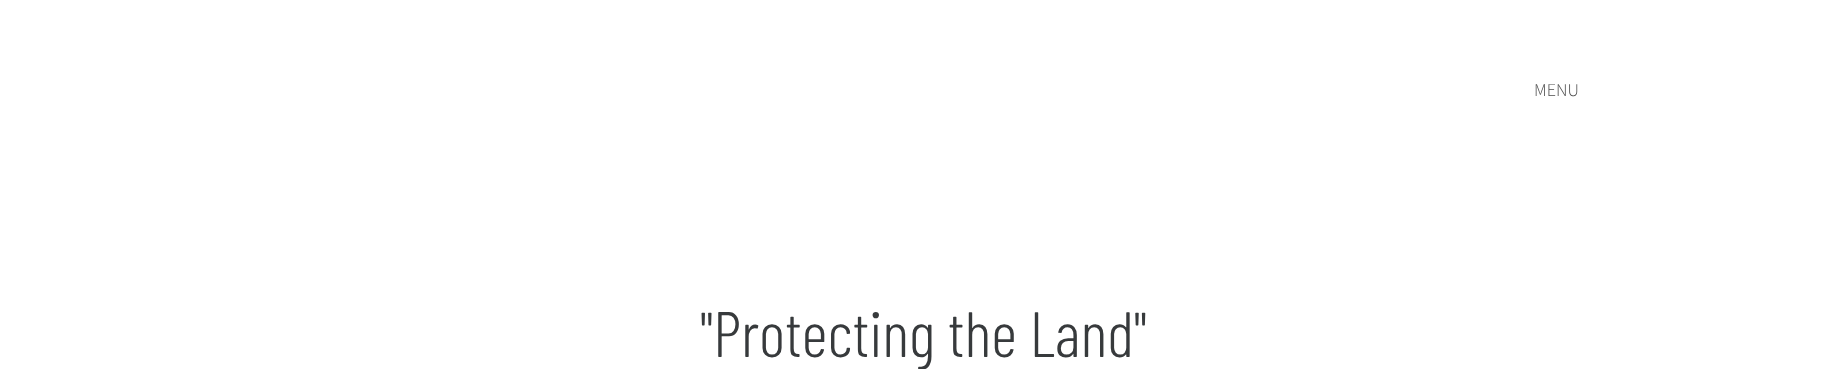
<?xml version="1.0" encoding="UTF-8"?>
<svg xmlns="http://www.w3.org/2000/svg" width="1848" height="369">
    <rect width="100%" height="100%" fill="#FFFFFF"/>
    <text x="1534" y="96" font-family="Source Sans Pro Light" font-size="18" font-weight="300" fill="#4C4C4C">MENU</text>
    <text x="700" y="357" font-family="Barlow Condensed" font-size="64" font-weight="300" fill="#373A3C">"Protecting the Land"</text>
</svg>
